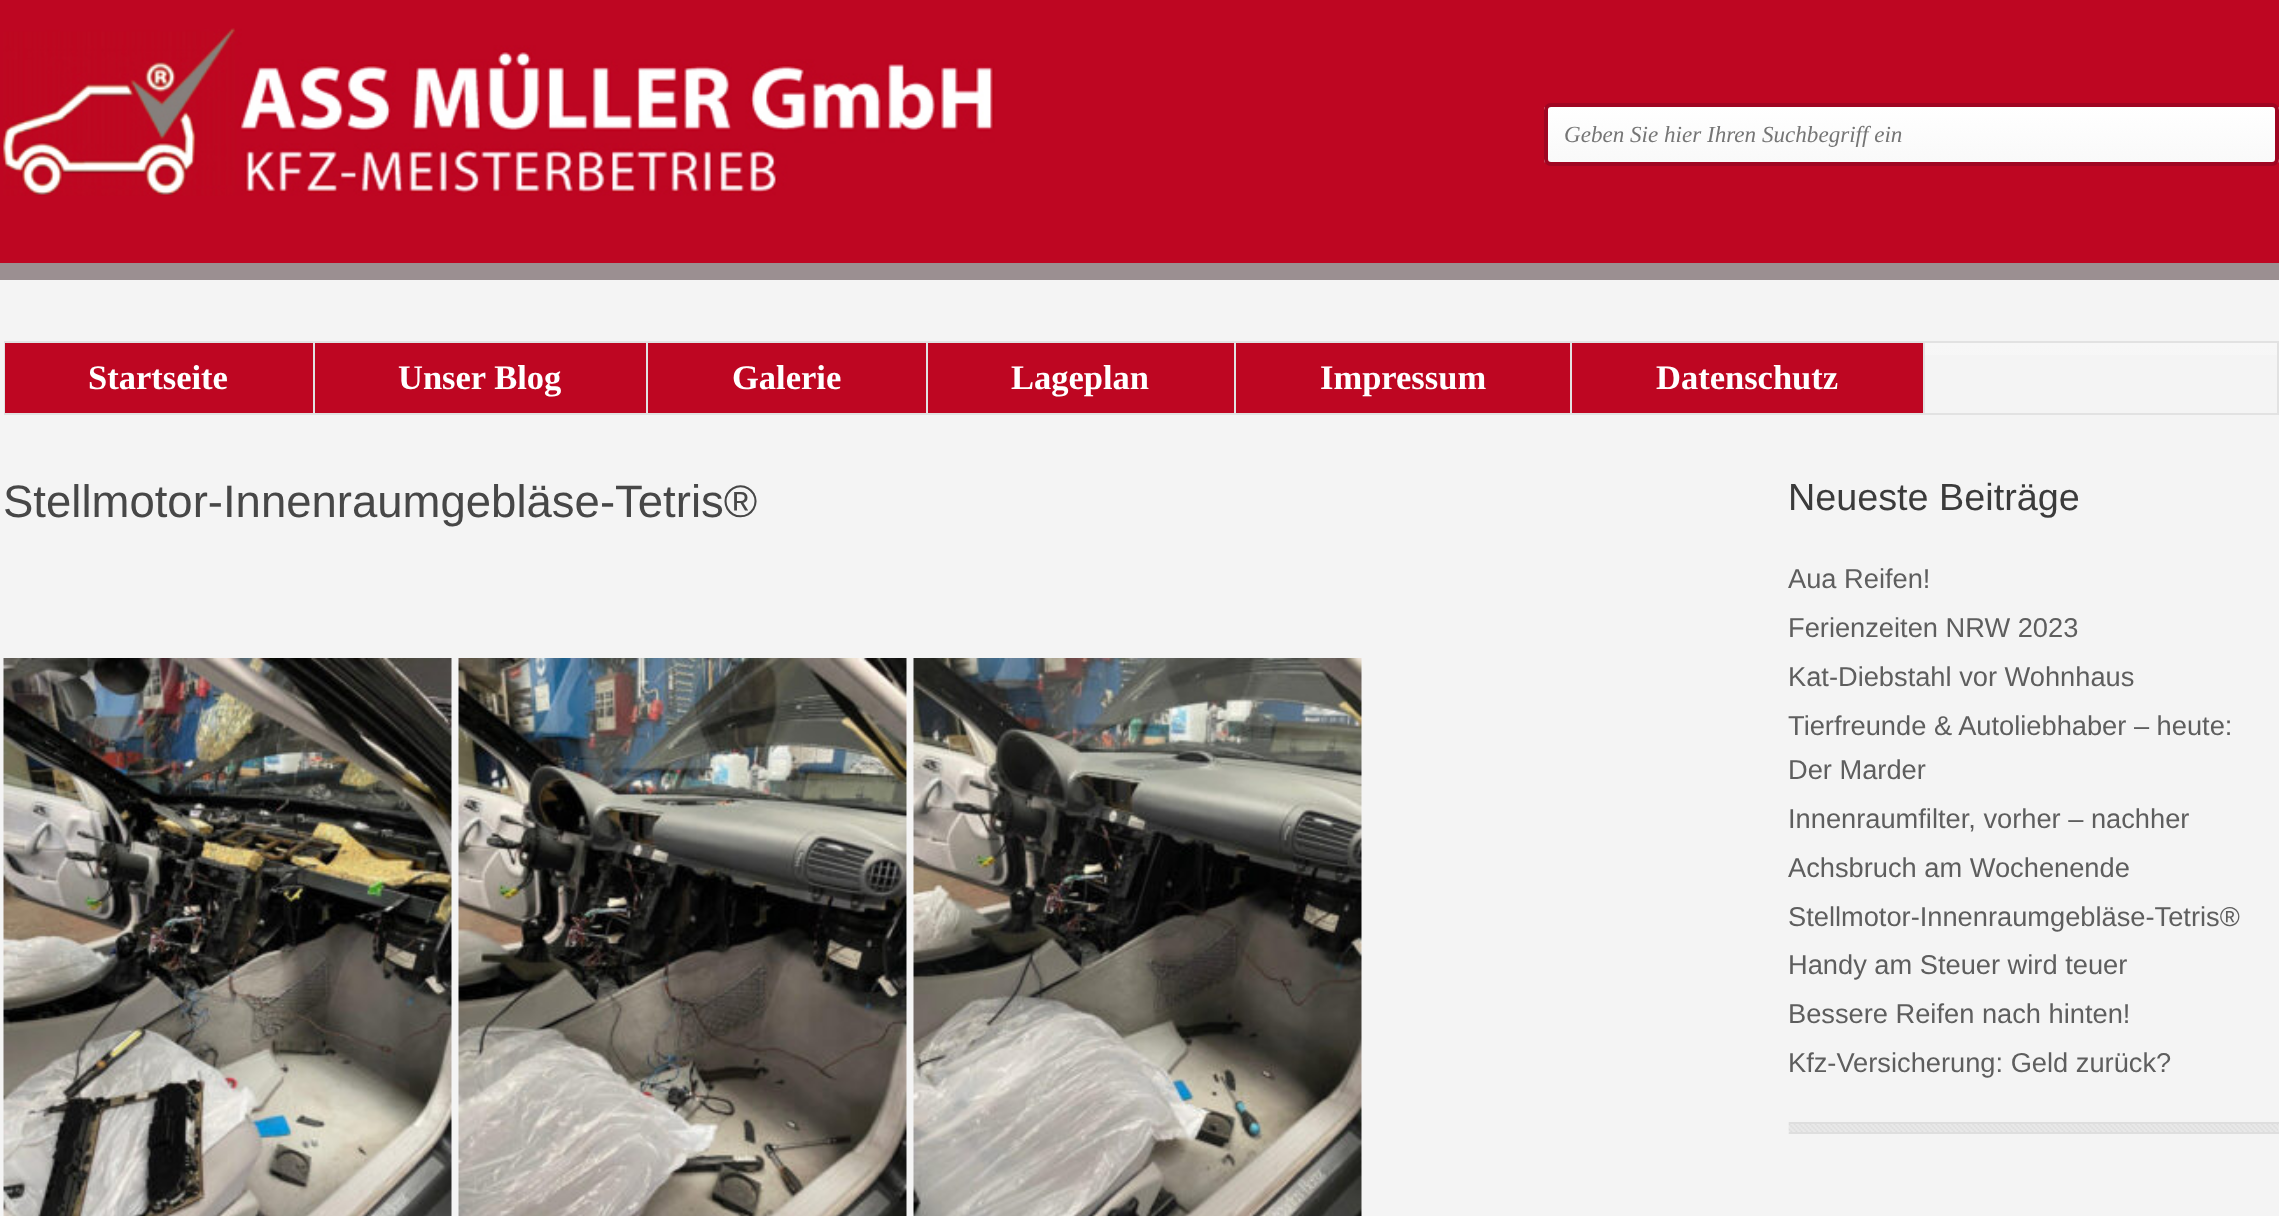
<?xml version="1.0" encoding="UTF-8"?>
<svg xmlns="http://www.w3.org/2000/svg" width="2279" height="1216">
    <defs>
        <clipPath id="clip1"><rect x="1544" y="103" width="735" height="63" rx="7"/></clipPath>
        <linearGradient id="g1" gradientUnits="userSpaceOnUse" x1="1911" y1="107" x2="1911" y2="163"><stop offset="0" stop-color="#FFFFFF"/><stop offset="1" stop-color="#F9F9F9"/></linearGradient>
        <linearGradient id="g2" gradientUnits="userSpaceOnUse" x1="1141" y1="343" x2="1141" y2="413"><stop offset="0" stop-color="#F7F7F7"/><stop offset="1" stop-color="#F4F4F4"/></linearGradient>
    </defs>
    <rect width="100%" height="100%" fill="#F4F4F4"/>
    <rect x="0" y="0" width="2279" height="263" fill="#BE0622"/>
    <rect x="0" y="263" width="2279" height="17" fill="#9B8F91"/>
    <image x="3" y="28" width="992" height="168" href="img_01.png"/>
    <g clip-path="url(#clip1)">
        <rect x="1544" y="107" width="735" height="56" fill="url(#g1)"/>
    </g>
    <rect x="1546" y="105" width="731" height="59" rx="5" fill="none" stroke="#9F0622" stroke-width="4"/>
    <text x="1564" y="142" font-family="Liberation Serif" font-size="23.1" font-style="italic" fill="#757575">Geben Sie hier Ihren Suchbegriff ein</text>
    <rect x="1925" y="343" width="352" height="12" fill="url(#g2)"/>
    <rect x="5" y="342" width="2273" height="72" fill="none" stroke="#E2E2E2" stroke-width="2"/>
    <rect x="313" y="343" width="2" height="70" fill="#E2E2E2"/>
    <rect x="5" y="343" width="308" height="70" fill="#BE0622"/>
    <text x="88" y="389" font-family="Liberation Serif" font-size="34.5" font-weight="700" fill="#FFFFFF">Startseite</text>
    <rect x="646" y="343" width="2" height="70" fill="#E2E2E2"/>
    <rect x="315" y="343" width="331" height="70" fill="#BE0622"/>
    <text x="398" y="389" font-family="Liberation Serif" font-size="34.5" font-weight="700" fill="#FFFFFF">Unser Blog</text>
    <rect x="926" y="343" width="2" height="70" fill="#E2E2E2"/>
    <rect x="648" y="343" width="278" height="70" fill="#BE0622"/>
    <text x="732" y="389" font-family="Liberation Serif" font-size="34.5" font-weight="700" fill="#FFFFFF">Galerie</text>
    <rect x="1234" y="343" width="2" height="70" fill="#E2E2E2"/>
    <rect x="928" y="343" width="306" height="70" fill="#BE0622"/>
    <text x="1011" y="389" font-family="Liberation Serif" font-size="34.5" font-weight="700" fill="#FFFFFF">Lageplan</text>
    <rect x="1570" y="343" width="2" height="70" fill="#E2E2E2"/>
    <rect x="1236" y="343" width="334" height="70" fill="#BE0622"/>
    <text x="1320" y="389" font-family="Liberation Serif" font-size="34.5" font-weight="700" fill="#FFFFFF">Impressum</text>
    <rect x="1923" y="343" width="2" height="70" fill="#E2E2E2"/>
    <rect x="1572" y="343" width="351" height="70" fill="#BE0622"/>
    <text x="1656" y="389" font-family="Liberation Serif" font-size="34.5" font-weight="700" fill="#FFFFFF">Datenschutz</text>
    <text x="3" y="517" font-family="Liberation Sans" font-size="45.5" fill="#474747">Stellmotor-Innenraumgebläse-Tetris®</text>
    <image x="3" y="658" width="449" height="558" href="img_02.png"/>
    <image x="458" y="658" width="449" height="558" href="img_03.png"/>
    <image x="913" y="658" width="449" height="558" href="img_04.png"/>
    <text x="1788" y="510" font-family="Liberation Sans" font-size="37.75" fill="#3B3B3B">Neueste Beiträge</text>
    <text font-family="Liberation Sans" font-size="27.25" fill="#5E5E5E">
        <tspan x="1788" y="588">Aua Reifen!</tspan>
        <tspan x="1788" y="637">Ferienzeiten NRW 2023</tspan>
        <tspan x="1788" y="686">Kat-Diebstahl vor Wohnhaus</tspan>
        <tspan x="1788" y="735">Tierfreunde &amp; Autoliebhaber – heute:</tspan>
        <tspan x="1788" y="779">Der Marder</tspan>
        <tspan x="1788" y="828">Innenraumfilter, vorher – nachher</tspan>
        <tspan x="1788" y="877">Achsbruch am Wochenende</tspan>
        <tspan x="1788" y="926">Stellmotor-Innenraumgebläse-Tetris®</tspan>
        <tspan x="1788" y="974">Handy am Steuer wird teuer</tspan>
        <tspan x="1788" y="1023">Bessere Reifen nach hinten!</tspan>
        <tspan x="1788" y="1072">Kfz-Versicherung: Geld zurück?</tspan>
    </text>
    <rect x="1789" y="1124" width="490" height="8" fill="#EEEEEE"/>
    <image x="1788" y="1122" width="491" height="12" href="img_05.png"/>
    <rect x="1789" y="1122" width="490" height="2" fill="#DEDEDE"/>
    <rect x="1789" y="1132" width="490" height="2" fill="#DEDEDE"/>
</svg>
